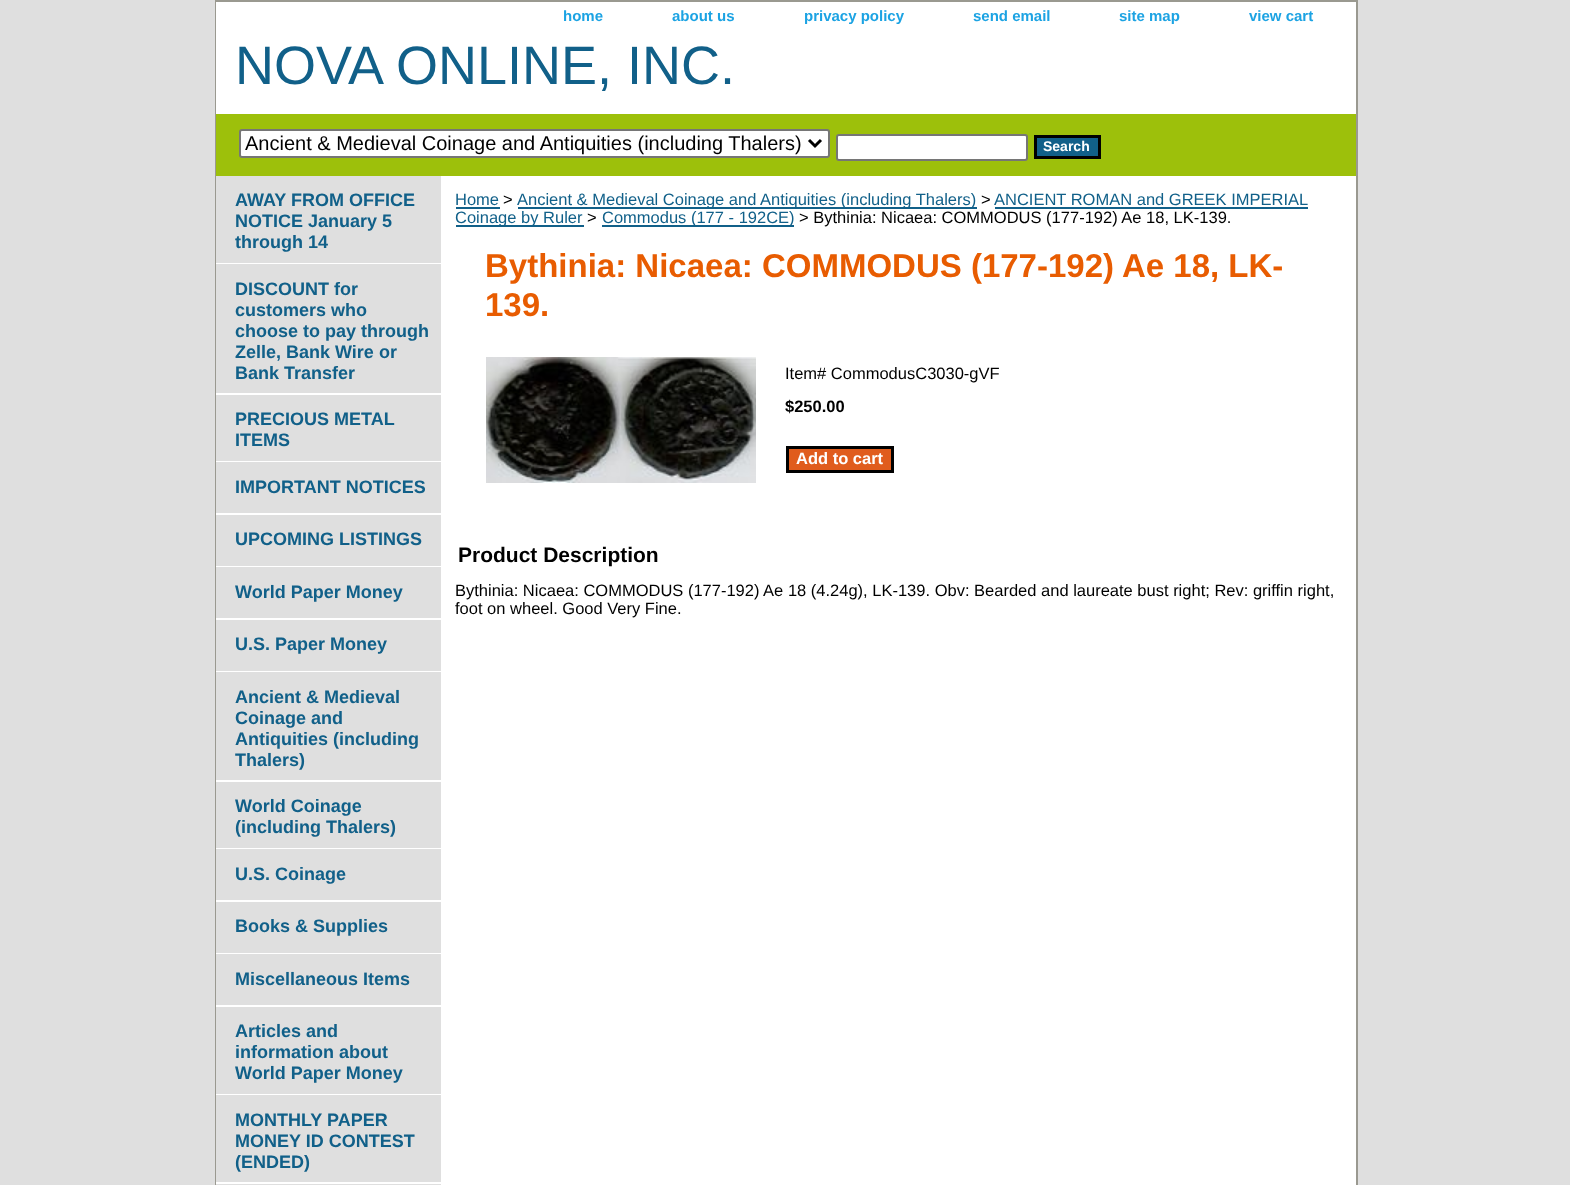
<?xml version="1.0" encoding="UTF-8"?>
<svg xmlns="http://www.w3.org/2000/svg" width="1570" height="1185">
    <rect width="100%" height="100%" fill="#DFDFDF"/>
    <rect x="216" y="1" width="1141" height="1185" fill="none" stroke="#9A9990" stroke-width="2"/>
    <rect x="216" y="2" width="1140" height="112" fill="#FFFFFF"/>
    <text x="563" y="21" font-family="Liberation Sans" font-size="15" font-weight="700" fill="#1CA3E3">home</text>
    <text x="672" y="21" font-family="Liberation Sans" font-size="15" font-weight="700" fill="#1CA3E3">about us</text>
    <text x="804" y="21" font-family="Liberation Sans" font-size="15" font-weight="700" fill="#1CA3E3">privacy policy</text>
    <text x="973" y="21" font-family="Liberation Sans" font-size="15" font-weight="700" fill="#1CA3E3">send email</text>
    <text x="1119" y="21" font-family="Liberation Sans" font-size="15" font-weight="700" fill="#1CA3E3">site map</text>
    <text x="1249" y="21" font-family="Liberation Sans" font-size="15" font-weight="700" fill="#1CA3E3">view cart</text>
    <text x="235" y="84" font-family="Liberation Sans" font-size="54" fill="#116089">NOVA ONLINE, INC.</text>
    <rect x="216" y="114" width="1140" height="62" fill="#9DC00B"/>
    <rect x="240" y="130" width="589" height="27" rx="2" fill="#FFFFFF" stroke="#767676" stroke-width="2"/>
    <path d="M 809 140 L 815 146 L 821 140" fill="none" stroke="#000000" stroke-width="3"/>
    <text x="245" y="150" font-family="Liberation Sans" font-size="20" fill="#000000">Ancient &amp; Medieval Coinage and Antiquities (including Thalers)</text>
    <rect x="837" y="135" width="190" height="25" rx="2" fill="#FFFFFF" stroke="#767676" stroke-width="2"/>
    <rect x="1035.5" y="136.5" width="64" height="21" fill="#116089" stroke="#000000" stroke-width="3"/>
    <text x="1043" y="151" font-family="Liberation Sans" font-size="14" font-weight="700" fill="#FFFFFF">Search</text>
    <rect x="441" y="176" width="915" height="1009" fill="#FFFFFF"/>
    <rect x="216" y="176" width="1" height="1009" fill="#DFDFDF"/>
    <rect x="216" y="263" width="225" height="1" fill="#FFFFFF"/>
    <text font-family="Liberation Sans" font-size="18" font-weight="700" fill="#116089">
        <tspan x="235" y="206">AWAY FROM OFFICE</tspan>
        <tspan x="235" y="227">NOTICE January 5</tspan>
        <tspan x="235" y="248">through 14</tspan>
    </text>
    <rect x="216" y="393" width="225" height="2" fill="#FFFFFF"/>
    <text font-family="Liberation Sans" font-size="18" font-weight="700" fill="#116089">
        <tspan x="235" y="295">DISCOUNT for</tspan>
        <tspan x="235" y="316">customers who</tspan>
        <tspan x="235" y="337">choose to pay through</tspan>
        <tspan x="235" y="358">Zelle, Bank Wire or</tspan>
        <tspan x="235" y="379">Bank Transfer</tspan>
    </text>
    <rect x="216" y="461" width="225" height="1" fill="#FFFFFF"/>
    <text font-family="Liberation Sans" font-size="18" font-weight="700" fill="#116089">
        <tspan x="235" y="425">PRECIOUS METAL</tspan>
        <tspan x="235" y="446">ITEMS</tspan>
    </text>
    <rect x="216" y="513" width="225" height="2" fill="#FFFFFF"/>
    <text x="235" y="493" font-family="Liberation Sans" font-size="18" font-weight="700" fill="#116089">IMPORTANT NOTICES</text>
    <rect x="216" y="566" width="225" height="1" fill="#FFFFFF"/>
    <text x="235" y="545" font-family="Liberation Sans" font-size="18" font-weight="700" fill="#116089">UPCOMING LISTINGS</text>
    <rect x="216" y="618" width="225" height="2" fill="#FFFFFF"/>
    <text x="235" y="598" font-family="Liberation Sans" font-size="18" font-weight="700" fill="#116089">World Paper Money</text>
    <rect x="216" y="671" width="225" height="1" fill="#FFFFFF"/>
    <text x="235" y="650" font-family="Liberation Sans" font-size="18" font-weight="700" fill="#116089">U.S. Paper Money</text>
    <rect x="216" y="780" width="225" height="2" fill="#FFFFFF"/>
    <text font-family="Liberation Sans" font-size="18" font-weight="700" fill="#116089">
        <tspan x="235" y="703">Ancient &amp; Medieval</tspan>
        <tspan x="235" y="724">Coinage and</tspan>
        <tspan x="235" y="745">Antiquities (including</tspan>
        <tspan x="235" y="766">Thalers)</tspan>
    </text>
    <rect x="216" y="848" width="225" height="1" fill="#FFFFFF"/>
    <text font-family="Liberation Sans" font-size="18" font-weight="700" fill="#116089">
        <tspan x="235" y="812">World Coinage</tspan>
        <tspan x="235" y="833">(including Thalers)</tspan>
    </text>
    <rect x="216" y="900" width="225" height="2" fill="#FFFFFF"/>
    <text x="235" y="880" font-family="Liberation Sans" font-size="18" font-weight="700" fill="#116089">U.S. Coinage</text>
    <rect x="216" y="953" width="225" height="1" fill="#FFFFFF"/>
    <text x="235" y="932" font-family="Liberation Sans" font-size="18" font-weight="700" fill="#116089">Books &amp; Supplies</text>
    <rect x="216" y="1005" width="225" height="2" fill="#FFFFFF"/>
    <text x="235" y="985" font-family="Liberation Sans" font-size="18" font-weight="700" fill="#116089">Miscellaneous Items</text>
    <rect x="216" y="1094" width="225" height="1" fill="#FFFFFF"/>
    <text font-family="Liberation Sans" font-size="18" font-weight="700" fill="#116089">
        <tspan x="235" y="1037">Articles and</tspan>
        <tspan x="235" y="1058">information about</tspan>
        <tspan x="235" y="1079">World Paper Money</tspan>
    </text>
    <rect x="216" y="1182" width="225" height="2" fill="#FFFFFF"/>
    <text font-family="Liberation Sans" font-size="18" font-weight="700" fill="#116089">
        <tspan x="235" y="1126">MONTHLY PAPER</tspan>
        <tspan x="235" y="1147">MONEY ID CONTEST</tspan>
        <tspan x="235" y="1168">(ENDED)</tspan>
    </text>
    <text x="455" y="205" font-family="Liberation Sans" font-size="16.5" fill="#116089">Home</text>
    <rect x="456" y="207" width="44" height="2" fill="#116089"/>
    <text x="503" y="205" font-family="Liberation Sans" font-size="16.5" fill="#000000">&gt;</text>
    <rect x="518" y="207" width="459" height="2" fill="#116089"/>
    <text x="517" y="205" font-family="Liberation Sans" font-size="16.5" fill="#116089">Ancient &amp; Medieval Coinage and Antiquities (including Thalers)</text>
    <text x="981" y="205" font-family="Liberation Sans" font-size="16.5" fill="#000000">&gt;</text>
    <text x="994" y="205" font-family="Liberation Sans" font-size="16.5" fill="#116089">ANCIENT ROMAN and GREEK IMPERIAL</text>
    <rect x="995" y="207" width="313" height="2" fill="#116089"/>
    <rect x="456" y="225" width="128" height="2" fill="#116089"/>
    <text x="455" y="223" font-family="Liberation Sans" font-size="16.5" fill="#116089">Coinage by Ruler</text>
    <text x="587" y="223" font-family="Liberation Sans" font-size="16.5" fill="#000000">&gt;</text>
    <rect x="602" y="225" width="192" height="2" fill="#116089"/>
    <text x="602" y="223" font-family="Liberation Sans" font-size="16.5" fill="#116089">Commodus (177 - 192CE)</text>
    <text x="799" y="223" font-family="Liberation Sans" font-size="16.5" fill="#000000">&gt; Bythinia: Nicaea: COMMODUS (177-192) Ae 18, LK-139.</text>
    <text font-family="Liberation Sans" font-size="33" font-weight="700" fill="#E85C01">
        <tspan x="485" y="277">Bythinia: Nicaea: COMMODUS (177-192) Ae 18, LK-</tspan>
        <tspan x="485" y="316">139.</tspan>
    </text>
    <image x="486" y="357" width="270" height="126" href="img_01.png"/>
    <text x="785" y="379" font-family="Liberation Sans" font-size="16.5" fill="#000000">Item# CommodusC3030-gVF</text>
    <text x="785" y="412" font-family="Liberation Sans" font-size="16.5" font-weight="700" fill="#000000">$250.00</text>
    <rect x="787.5" y="447.5" width="105" height="24" fill="#E05C1D" stroke="#000000" stroke-width="3"/>
    <text x="796" y="464" font-family="Liberation Sans" font-size="16.5" font-weight="700" fill="#FFFFFF">Add to cart</text>
    <text x="458" y="562" font-family="Liberation Sans" font-size="21" font-weight="700" fill="#000000">Product Description</text>
    <text font-family="Liberation Sans" font-size="16.5" fill="#000000">
        <tspan x="455" y="596">Bythinia: Nicaea: COMMODUS (177-192) Ae 18 (4.24g), LK-139. Obv: Bearded and laureate bust right; Rev: griffin right,</tspan>
        <tspan x="455" y="614">foot on wheel. Good Very Fine.</tspan>
    </text>
</svg>
